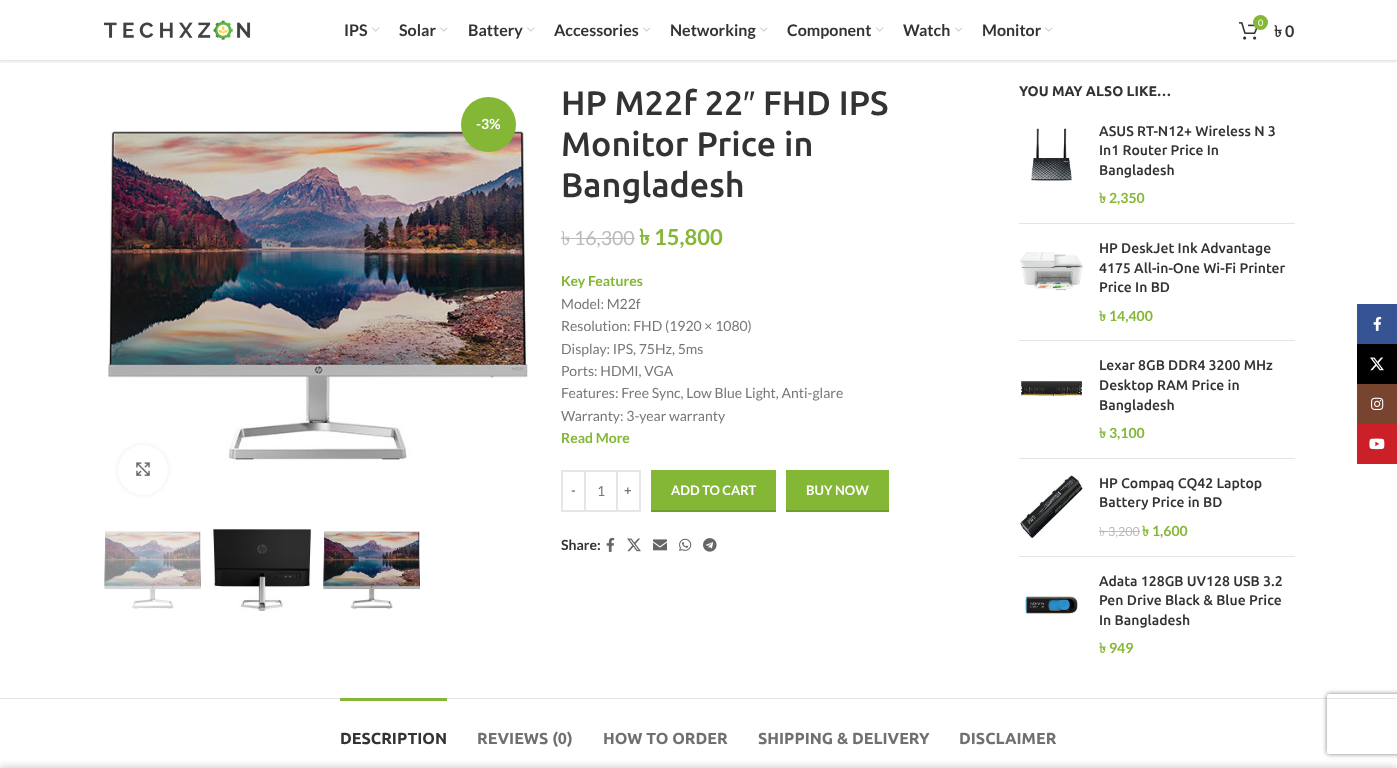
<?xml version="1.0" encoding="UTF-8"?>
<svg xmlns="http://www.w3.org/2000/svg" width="1397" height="768">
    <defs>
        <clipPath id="clip1"><rect x="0" y="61" width="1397" height="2"/></clipPath>
        <filter id="blur1" x="-50%" y="-200%" width="200%" height="500%"><feGaussianBlur stdDeviation="1.5"/></filter>
        <filter id="blur2" x="-50%" y="-200%" width="200%" height="500%"><feGaussianBlur stdDeviation="2.5"/></filter>
        <clipPath id="clip2"><path d="M 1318 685 H 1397 V 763 H 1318 Z M 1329 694 H 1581 C 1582 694 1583 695 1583 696 V 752 C 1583 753 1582 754 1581 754 H 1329 C 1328 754 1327 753 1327 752 V 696 C 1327 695 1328 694 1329 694 Z" clip-rule="evenodd"/></clipPath>
        <filter id="blur3" x="-50%" y="-200%" width="200%" height="500%"><feGaussianBlur stdDeviation="4.5"/></filter>
    </defs>
    <rect width="100%" height="100%" fill="#FFFFFF"/>
    <g clip-path="url(#clip1)">
        <rect x="0" y="1" width="1397" height="61" fill="#000000" fill-opacity="0.1" filter="url(#blur1)"/>
    </g>
    <rect x="0" y="60" width="1397" height="1" fill="#E6E6E6"/>
    <image x="104" y="20" width="147" height="20" href="img_01.png"/>
    <text x="344" y="36" font-family="Lato" font-size="16" font-weight="700" fill="#333333">IPS</text>
    <image x="372" y="27" width="8" height="5" href="img_02.png"/>
    <text x="399" y="36" font-family="Lato" font-size="16" font-weight="700" fill="#333333">Solar</text>
    <image x="440" y="27" width="8" height="5" href="img_02.png"/>
    <text x="468" y="36" font-family="Lato" font-size="16" font-weight="700" fill="#333333">Battery</text>
    <image x="527" y="27" width="8" height="5" href="img_02.png"/>
    <text x="554" y="36" font-family="Lato" font-size="16" font-weight="700" fill="#333333">Accessories</text>
    <image x="643" y="27" width="8" height="5" href="img_02.png"/>
    <text x="670" y="36" font-family="Lato" font-size="16" font-weight="700" fill="#333333">Networking</text>
    <image x="760" y="27" width="8" height="5" href="img_02.png"/>
    <text x="787" y="36" font-family="Lato" font-size="16" font-weight="700" fill="#333333">Component</text>
    <image x="876" y="27" width="8" height="5" href="img_02.png"/>
    <text x="903" y="36" font-family="Lato" font-size="16" font-weight="700" fill="#333333">Watch</text>
    <image x="955" y="27" width="8" height="5" href="img_02.png"/>
    <text x="982" y="36" font-family="Lato" font-size="16" font-weight="700" fill="#333333">Monitor</text>
    <image x="1045" y="27" width="8" height="5" href="img_02.png"/>
    <image x="1239" y="22" width="19" height="18" href="img_03.png"/>
    <circle cx="1260.5" cy="22.5" r="7.5" fill="#83B735"/>
    <text x="1258" y="26" font-family="Lato" font-size="9" fill="#FFFFFF">0</text>
    <text x="1274" y="37" font-family="Lohit Bengali" font-size="16" font-weight="700" fill="#333333">৳</text>
    <text x="1285" y="37" font-family="Lato" font-size="16" font-weight="700" fill="#333333">0</text>
    <image x="108" y="130" width="420" height="335" href="img_04.png"/>
    <circle cx="488.5" cy="124.5" r="27.5" fill="#83B735"/>
    <text x="476" y="129" font-family="Lato" font-size="14" font-weight="700" fill="#FFFFFF">-3%</text>
    <rect x="118" y="445" width="50" height="50" rx="25" fill="#000000" fill-opacity="0.08" filter="url(#blur2)"/>
    <circle cx="143" cy="470" r="25" fill="#FFFFFF"/>
    <image x="136" y="462" width="14" height="14" href="img_05.png"/>
    <image x="104" y="531" width="97" height="78" href="img_06.png"/>
    <image x="213" y="527" width="99" height="84" href="img_07.png"/>
    <image x="323" y="531" width="97" height="78" href="img_08.png"/>
    <text x="561" y="115" font-family="Ubuntu" font-size="34" font-weight="500" fill="#333333">HP M22f 22</text>
    <text x="743" y="115" font-family="Liberation Sans" font-size="34" fill="#333333">″</text>
    <text x="763" y="115" font-family="Ubuntu" font-size="34" font-weight="500" fill="#333333">FHD IPS</text>
    <text font-family="Ubuntu" font-size="34" font-weight="500" fill="#333333">
        <tspan x="561" y="156">Monitor Price in</tspan>
        <tspan x="561" y="197">Bangladesh</tspan>
    </text>
    <text x="561" y="245" font-family="Lohit Bengali" font-size="19.5" fill="#BBBBBB">৳</text>
    <rect x="561" y="238" width="13" height="1" fill="#BBBBBB"/>
    <text x="574" y="245" font-family="Lato" font-size="19.5" fill="#BBBBBB">16,300</text>
    <rect x="574" y="238" width="61" height="1" fill="#BBBBBB"/>
    <text x="639" y="245" font-family="Lohit Bengali" font-size="22" font-weight="700" fill="#83B735">৳</text>
    <text x="654" y="245" font-family="Lato" font-size="22" font-weight="700" fill="#83B735">15,800</text>
    <text x="561" y="286" font-family="Lato" font-size="14" font-weight="700" fill="#83B735">Key Features</text>
    <text font-family="Lato" font-size="14" fill="#777777">
        <tspan x="561" y="309">Model: M22f</tspan>
        <tspan x="561" y="331">Resolution: FHD (1920 × 1080)</tspan>
        <tspan x="561" y="354">Display: IPS, 75Hz, 5ms</tspan>
        <tspan x="561" y="376">Ports: HDMI, VGA</tspan>
        <tspan x="561" y="398">Features: Free Sync, Low Blue Light, Anti-glare</tspan>
        <tspan x="561" y="421">Warranty: 3-year warranty</tspan>
    </text>
    <text x="561" y="443" font-family="Lato" font-size="14" font-weight="700" fill="#83B735">Read More</text>
    <rect x="562" y="471" width="23" height="40" fill="none" stroke="#E6E6E6" stroke-width="2"/>
    <text x="571" y="495" font-family="Lato" font-size="13" font-weight="700" fill="#777777">-</text>
    <rect x="586" y="470" width="30" height="2" fill="#E6E6E6"/>
    <rect x="586" y="510" width="30" height="2" fill="#E6E6E6"/>
    <text x="597" y="496" font-family="Lato" font-size="14" fill="#777777">1</text>
    <rect x="617" y="471" width="23" height="40" fill="none" stroke="#E6E6E6" stroke-width="2"/>
    <text x="624" y="495" font-family="Lato" font-size="13" font-weight="700" fill="#777777">+</text>
    <rect x="651" y="470" width="125" height="40" fill="#83B735"/>
    <rect x="651" y="510" width="125" height="2" fill="#6F9C2D"/>
    <text x="671" y="495" font-family="Lato" font-size="13" font-weight="700" fill="#FFFFFF">ADD TO CART</text>
    <rect x="786" y="470" width="103" height="40" fill="#83B735"/>
    <rect x="786" y="510" width="103" height="2" fill="#6F9C2D"/>
    <text x="806" y="495" font-family="Lato" font-size="13" font-weight="700" fill="#FFFFFF">BUY NOW</text>
    <text x="561" y="550" font-family="Lato" font-size="14" font-weight="700" fill="#333333">Share:</text>
    <image x="606" y="537" width="9" height="15" href="img_09.png"/>
    <image x="627" y="538" width="14" height="14" href="img_10.png"/>
    <image x="653" y="539" width="14" height="12" href="img_11.png"/>
    <image x="679" y="538" width="13" height="13" href="img_12.png"/>
    <image x="703" y="538" width="14" height="14" href="img_13.png"/>
    <text x="1019" y="96" font-family="Ubuntu" font-size="14" font-weight="700" fill="#333333">YOU MAY ALSO LIKE…</text>
    <rect x="1019" y="223" width="276" height="1" fill="#E4E4E4"/>
    <image x="1031" y="128" width="41" height="53" href="img_14.png"/>
    <text font-family="Ubuntu" font-size="14" font-weight="500" fill="#333333">
        <tspan x="1099" y="136">ASUS RT-N12+ Wireless N 3</tspan>
        <tspan x="1099" y="155">In1 Router Price In</tspan>
        <tspan x="1099" y="175">Bangladesh</tspan>
    </text>
    <text x="1099" y="203" font-family="Lohit Bengali" font-size="14" font-weight="700" fill="#83B735">৳</text>
    <text x="1109" y="203" font-family="Lato" font-size="14" font-weight="700" fill="#83B735">2,350</text>
    <rect x="1019" y="340" width="276" height="1" fill="#E4E4E4"/>
    <image x="1020" y="252" width="63" height="39" href="img_15.png"/>
    <text font-family="Ubuntu" font-size="14" font-weight="500" fill="#333333">
        <tspan x="1099" y="253">HP DeskJet Ink Advantage</tspan>
        <tspan x="1099" y="273">4175 All-in-One Wi-Fi Printer</tspan>
        <tspan x="1099" y="292">Price In BD</tspan>
    </text>
    <text x="1099" y="321" font-family="Lohit Bengali" font-size="14" font-weight="700" fill="#83B735">৳</text>
    <text x="1109" y="321" font-family="Lato" font-size="14" font-weight="700" fill="#83B735">14,400</text>
    <rect x="1019" y="458" width="276" height="1" fill="#E4E4E4"/>
    <image x="1021" y="381" width="61" height="16" href="img_16.png"/>
    <text font-family="Ubuntu" font-size="14" font-weight="500" fill="#333333">
        <tspan x="1099" y="370">Lexar 8GB DDR4 3200 MHz</tspan>
        <tspan x="1099" y="390">Desktop RAM Price in</tspan>
        <tspan x="1099" y="410">Bangladesh</tspan>
    </text>
    <text x="1099" y="438" font-family="Lohit Bengali" font-size="14" font-weight="700" fill="#83B735">৳</text>
    <text x="1109" y="438" font-family="Lato" font-size="14" font-weight="700" fill="#83B735">3,100</text>
    <rect x="1019" y="556" width="276" height="1" fill="#E4E4E4"/>
    <image x="1020" y="475" width="63" height="63" href="img_17.png"/>
    <text font-family="Ubuntu" font-size="14" font-weight="500" fill="#333333">
        <tspan x="1099" y="488">HP Compaq CQ42 Laptop</tspan>
        <tspan x="1099" y="507">Battery Price in BD</tspan>
    </text>
    <text x="1099" y="536" font-family="Lohit Bengali" font-size="12.5" fill="#BBBBBB">৳</text>
    <rect x="1099" y="531" width="9" height="1" fill="#BBBBBB"/>
    <text x="1108" y="536" font-family="Lato" font-size="12.5" fill="#BBBBBB">3,200</text>
    <rect x="1108" y="531" width="32" height="1" fill="#BBBBBB"/>
    <text x="1142" y="536" font-family="Lohit Bengali" font-size="14" font-weight="700" fill="#83B735">৳</text>
    <text x="1152" y="536" font-family="Lato" font-size="14" font-weight="700" fill="#83B735">1,600</text>
    <image x="1025" y="596" width="53" height="18" href="img_18.png"/>
    <text font-family="Ubuntu" font-size="14" font-weight="500" fill="#333333">
        <tspan x="1099" y="586">Adata 128GB UV128 USB 3.2</tspan>
        <tspan x="1099" y="605">Pen Drive Black &amp; Blue Price</tspan>
        <tspan x="1099" y="625">In Bangladesh</tspan>
    </text>
    <text x="1099" y="653" font-family="Lohit Bengali" font-size="14" font-weight="700" fill="#83B735">৳</text>
    <text x="1109" y="653" font-family="Lato" font-size="14" font-weight="700" fill="#83B735">949</text>
    <rect x="0" y="698" width="1397" height="1" fill="#E4E4E4"/>
    <rect x="340" y="698" width="107" height="3" fill="#83B735"/>
    <text x="340" y="744" font-family="Ubuntu" font-size="16" font-weight="700" fill="#333333">DESCRIPTION</text>
    <text x="477" y="744" font-family="Ubuntu" font-size="16" font-weight="700" fill="#707070">REVIEWS (0)</text>
    <text x="603" y="744" font-family="Ubuntu" font-size="16" font-weight="700" fill="#707070">HOW TO ORDER</text>
    <text x="758" y="744" font-family="Ubuntu" font-size="16" font-weight="700" fill="#707070">SHIPPING &amp; DELIVERY</text>
    <text x="959" y="744" font-family="Ubuntu" font-size="16" font-weight="700" fill="#707070">DISCLAIMER</text>
    <rect x="1357" y="304" width="40" height="40" fill="#365493"/>
    <image x="1373" y="316" width="9" height="15" href="img_19.png"/>
    <rect x="1357" y="344" width="40" height="40" fill="#000000"/>
    <image x="1370" y="357" width="14" height="14" href="img_20.png"/>
    <rect x="1357" y="384" width="40" height="40" fill="#774430"/>
    <image x="1371" y="397" width="13" height="13" href="img_21.png"/>
    <rect x="1357" y="424" width="40" height="40" fill="#CB2027"/>
    <image x="1369" y="438" width="16" height="12" href="img_22.png"/>
    <g clip-path="url(#clip2)">
        <rect x="1327" y="694" width="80" height="60" rx="2" fill="#808080" filter="url(#blur2)"/>
    </g>
    <rect x="1377" y="698" width="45" height="50" rx="25" fill="#FFFFFF"/>
    <rect x="0" y="768" width="1397" height="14" fill="#000000" fill-opacity="0.12" filter="url(#blur3)"/>
    <rect x="0" y="768" width="1397" height="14" fill="#000000" fill-opacity="0.14" filter="url(#blur3)"/>
</svg>
